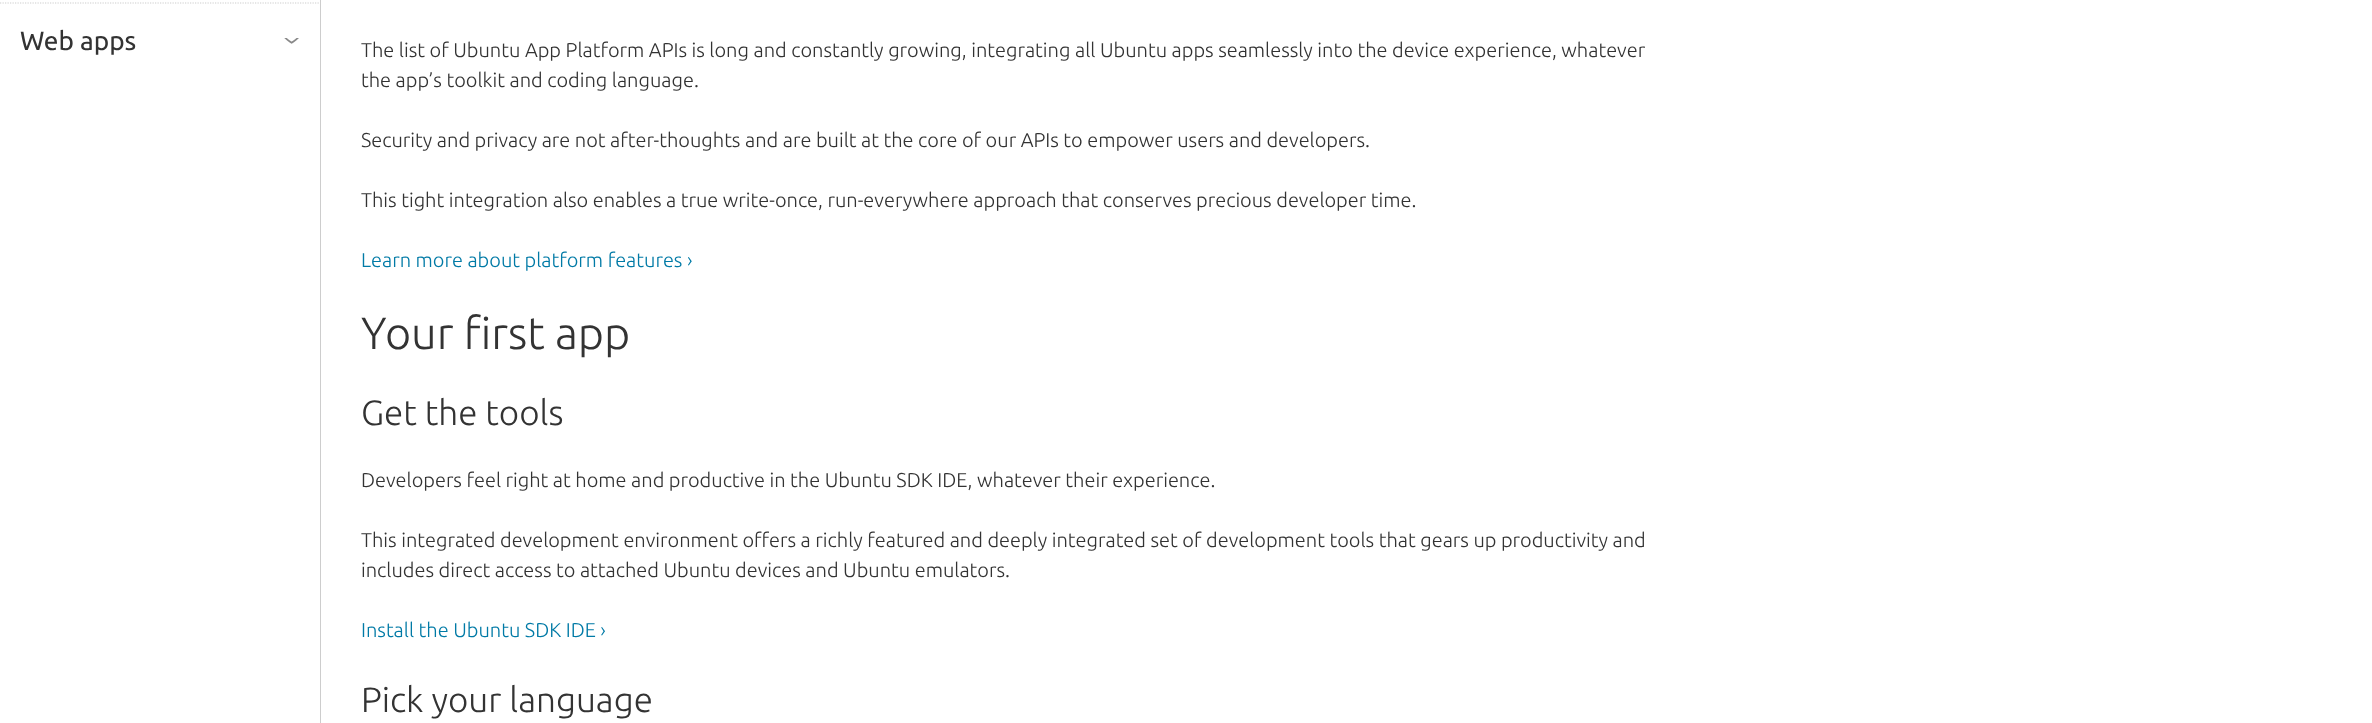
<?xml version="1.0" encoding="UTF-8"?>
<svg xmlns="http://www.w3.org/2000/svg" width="2372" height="723">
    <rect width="100%" height="100%" fill="#FFFFFF"/>
    <path d="M 0 3 H 320" fill="none" stroke="#CDCDCD" stroke-width="1.2" stroke-dasharray="1.25 1.25"/>
    <text x="20" y="50" font-family="Ubuntu" font-size="26.25" fill="#333333">Web apps</text>
    <image x="284" y="38" width="15" height="6" href="img_01.png"/>
    <rect x="320" y="0" width="1" height="723" fill="#CDCDCD"/>
    <text font-family="Ubuntu" font-size="20" font-weight="300" fill="#333333">
        <tspan x="361" y="57">The list of Ubuntu App Platform APIs is long and constantly growing, integrating all Ubuntu apps seamlessly into the device experience, whatever</tspan>
        <tspan x="361" y="87">the app’s toolkit and coding language.</tspan>
    </text>
    <text x="361" y="147" font-family="Ubuntu" font-size="20" font-weight="300" fill="#333333">Security and privacy are not after-thoughts and are built at the core of our APIs to empower users and developers.</text>
    <text x="361" y="207" font-family="Ubuntu" font-size="20" font-weight="300" fill="#333333">This tight integration also enables a true write-once, run-everywhere approach that conserves precious developer time.</text>
    <text x="361" y="267" font-family="Ubuntu" font-size="20" font-weight="300" fill="#007AA6">Learn more about platform features ›</text>
    <text x="361" y="349" font-family="Ubuntu" font-size="45" font-weight="300" fill="#333333">Your first app</text>
    <text x="361" y="425" font-family="Ubuntu" font-size="35" font-weight="300" fill="#333333">Get the tools</text>
    <text x="361" y="487" font-family="Ubuntu" font-size="20" font-weight="300" fill="#333333">Developers feel right at home and productive in the Ubuntu SDK IDE, whatever their experience.</text>
    <text font-family="Ubuntu" font-size="20" font-weight="300" fill="#333333">
        <tspan x="361" y="547">This integrated development environment offers a richly featured and deeply integrated set of development tools that gears up productivity and</tspan>
        <tspan x="361" y="577">includes direct access to attached Ubuntu devices and Ubuntu emulators.</tspan>
    </text>
    <text x="361" y="637" font-family="Ubuntu" font-size="20" font-weight="300" fill="#007AA6">Install the Ubuntu SDK IDE ›</text>
    <text x="361" y="712" font-family="Ubuntu" font-size="35" font-weight="300" fill="#333333">Pick your language</text>
</svg>
